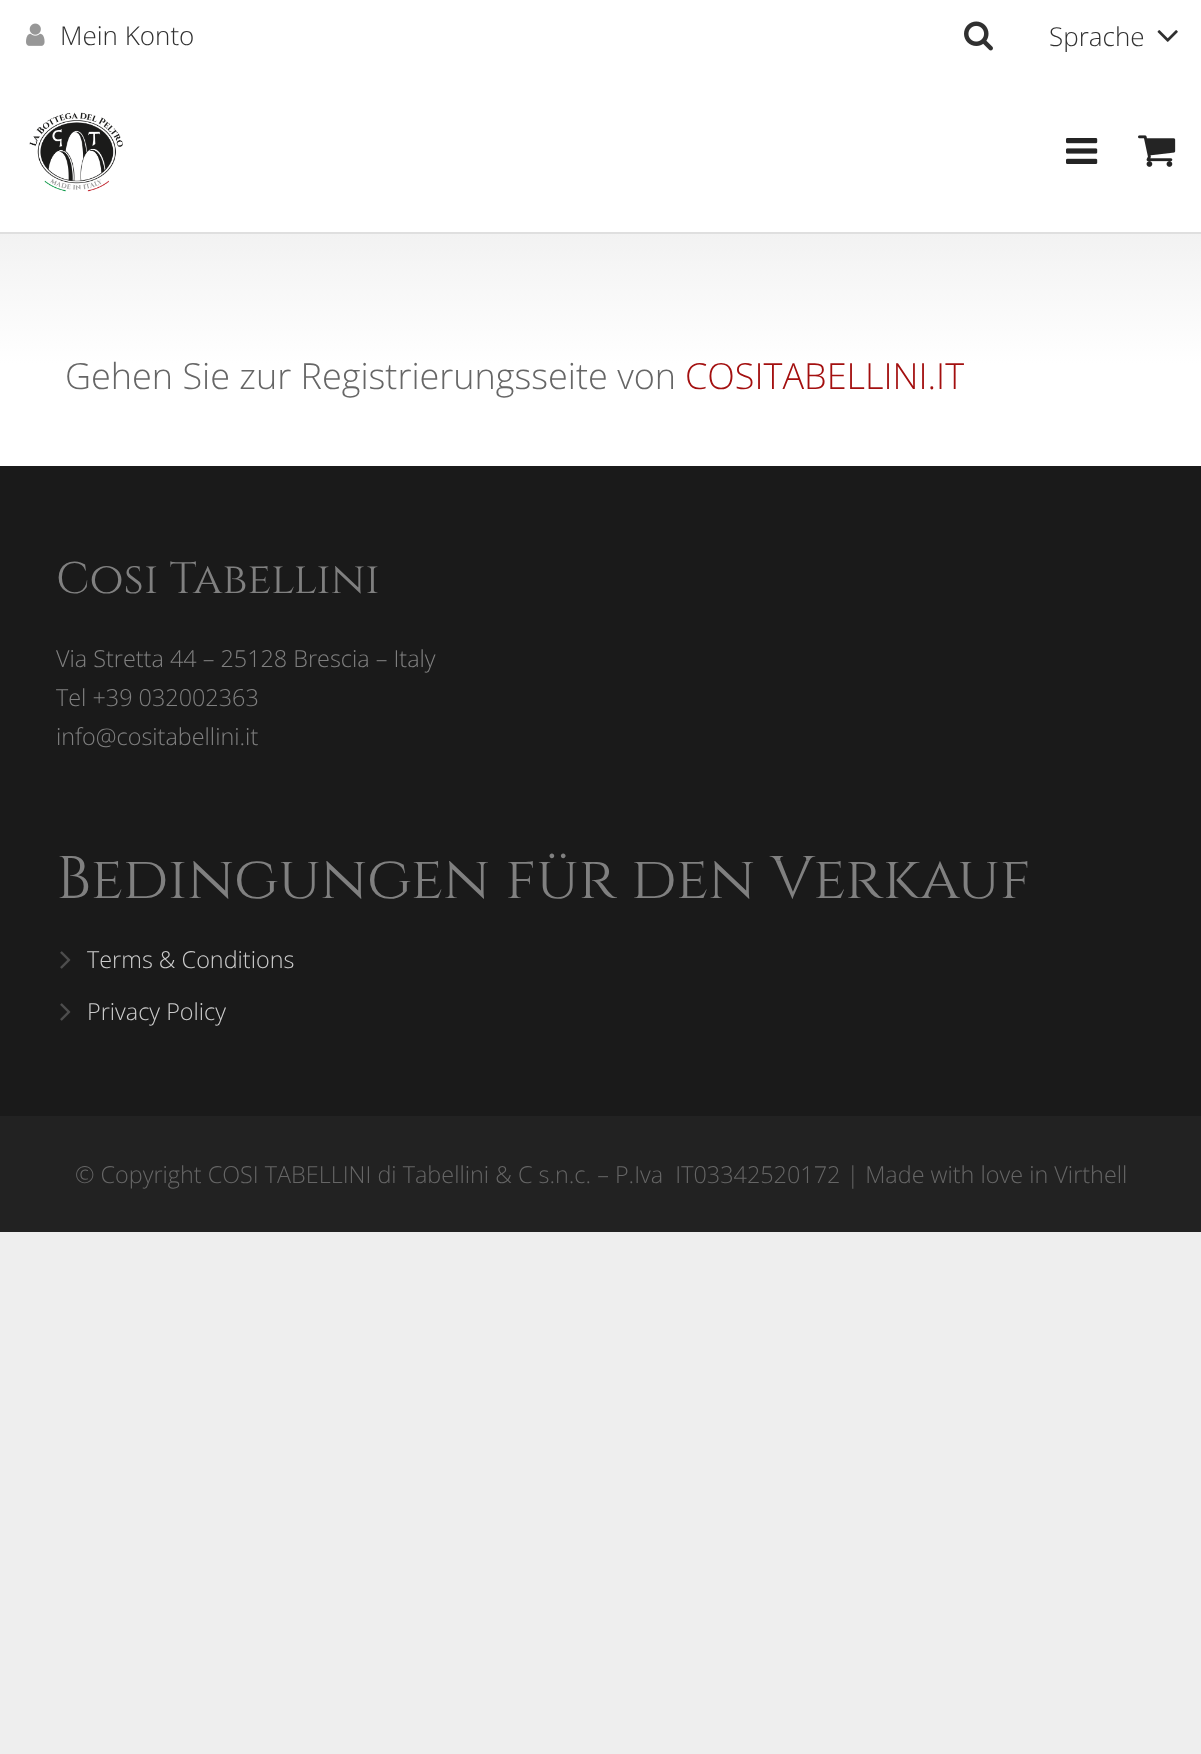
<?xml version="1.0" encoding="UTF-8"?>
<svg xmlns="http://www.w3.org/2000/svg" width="1201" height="1754">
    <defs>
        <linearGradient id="g1" gradientUnits="userSpaceOnUse" x1="601" y1="232" x2="601" y2="466"><stop offset="0" stop-color="#F2F2F2"/><stop offset="0.56" stop-color="#FFFFFF"/></linearGradient>
    </defs>
    <rect width="100%" height="100%" fill="#EEEEEE"/>
    <rect x="0" y="0" width="1201" height="232" fill="#FFFFFF"/>
    <image x="26" y="23" width="19" height="23" href="img_01.png"/>
    <text x="60" y="45" font-family="Open Sans" font-size="26" font-weight="300" fill="#303030">Mein Konto</text>
    <image x="964" y="21" width="29" height="30" href="img_02.png"/>
    <text x="1049" y="46" font-family="Open Sans" font-size="26" font-weight="300" fill="#303030">Sprache</text>
    <image x="1157" y="30" width="21" height="12" href="img_03.png"/>
    <rect x="0" y="232" width="1201" height="2" fill="#DFDFDF"/>
    <image x="29" y="112" width="94" height="80" href="img_04.png"/>
    <image x="1066" y="138" width="32" height="26" href="img_05.png"/>
    <image x="1138" y="135" width="38" height="32" href="img_06.png"/>
    <rect x="0" y="234" width="1201" height="232" fill="url(#g1)"/>
    <text x="65" y="389" font-family="Open Sans" font-size="36" font-weight="300" fill="#666666">Gehen Sie zur Registrierungsseite von</text>
    <text x="685" y="389" font-family="Open Sans" font-size="36" font-weight="300" fill="#A30F0F">COSITABELLINI.IT</text>
    <rect x="0" y="466" width="1201" height="650" fill="#1A1A1A"/>
    <text x="56" y="593" font-family="Cinzel" font-size="44" fill="#808080">Cosi Tabellini</text>
    <text font-family="Open Sans" font-size="23.4" font-weight="300" fill="#808080">
        <tspan x="56" y="667">Via Stretta 44 – 25128 Brescia – Italy</tspan>
        <tspan x="56" y="706">Tel +39 032002363</tspan>
        <tspan x="56" y="745">info@cositabellini.it</tspan>
    </text>
    <text x="56" y="898" font-family="Cinzel" font-size="60" fill="#808080">Bedingungen für den Verkauf</text>
    <image x="60" y="951" width="11" height="18" href="img_07.png"/>
    <text x="87" y="968" font-family="Open Sans" font-size="23.4" font-weight="300" fill="#CCCCCC">Terms &amp; Conditions</text>
    <image x="60" y="1003" width="11" height="18" href="img_07.png"/>
    <text x="87" y="1020" font-family="Open Sans" font-size="23.4" font-weight="300" fill="#CCCCCC">Privacy Policy</text>
    <rect x="0" y="1116" width="1201" height="116" fill="#222222"/>
    <text x="75" y="1183" font-family="Open Sans" font-size="23.4" font-weight="300" fill="#666666" xml:space="preserve">© Copyright COSI TABELLINI di Tabellini &amp; C s.n.c. – P.Iva  IT03342520172 | Made with love in Virthell</text>
</svg>
